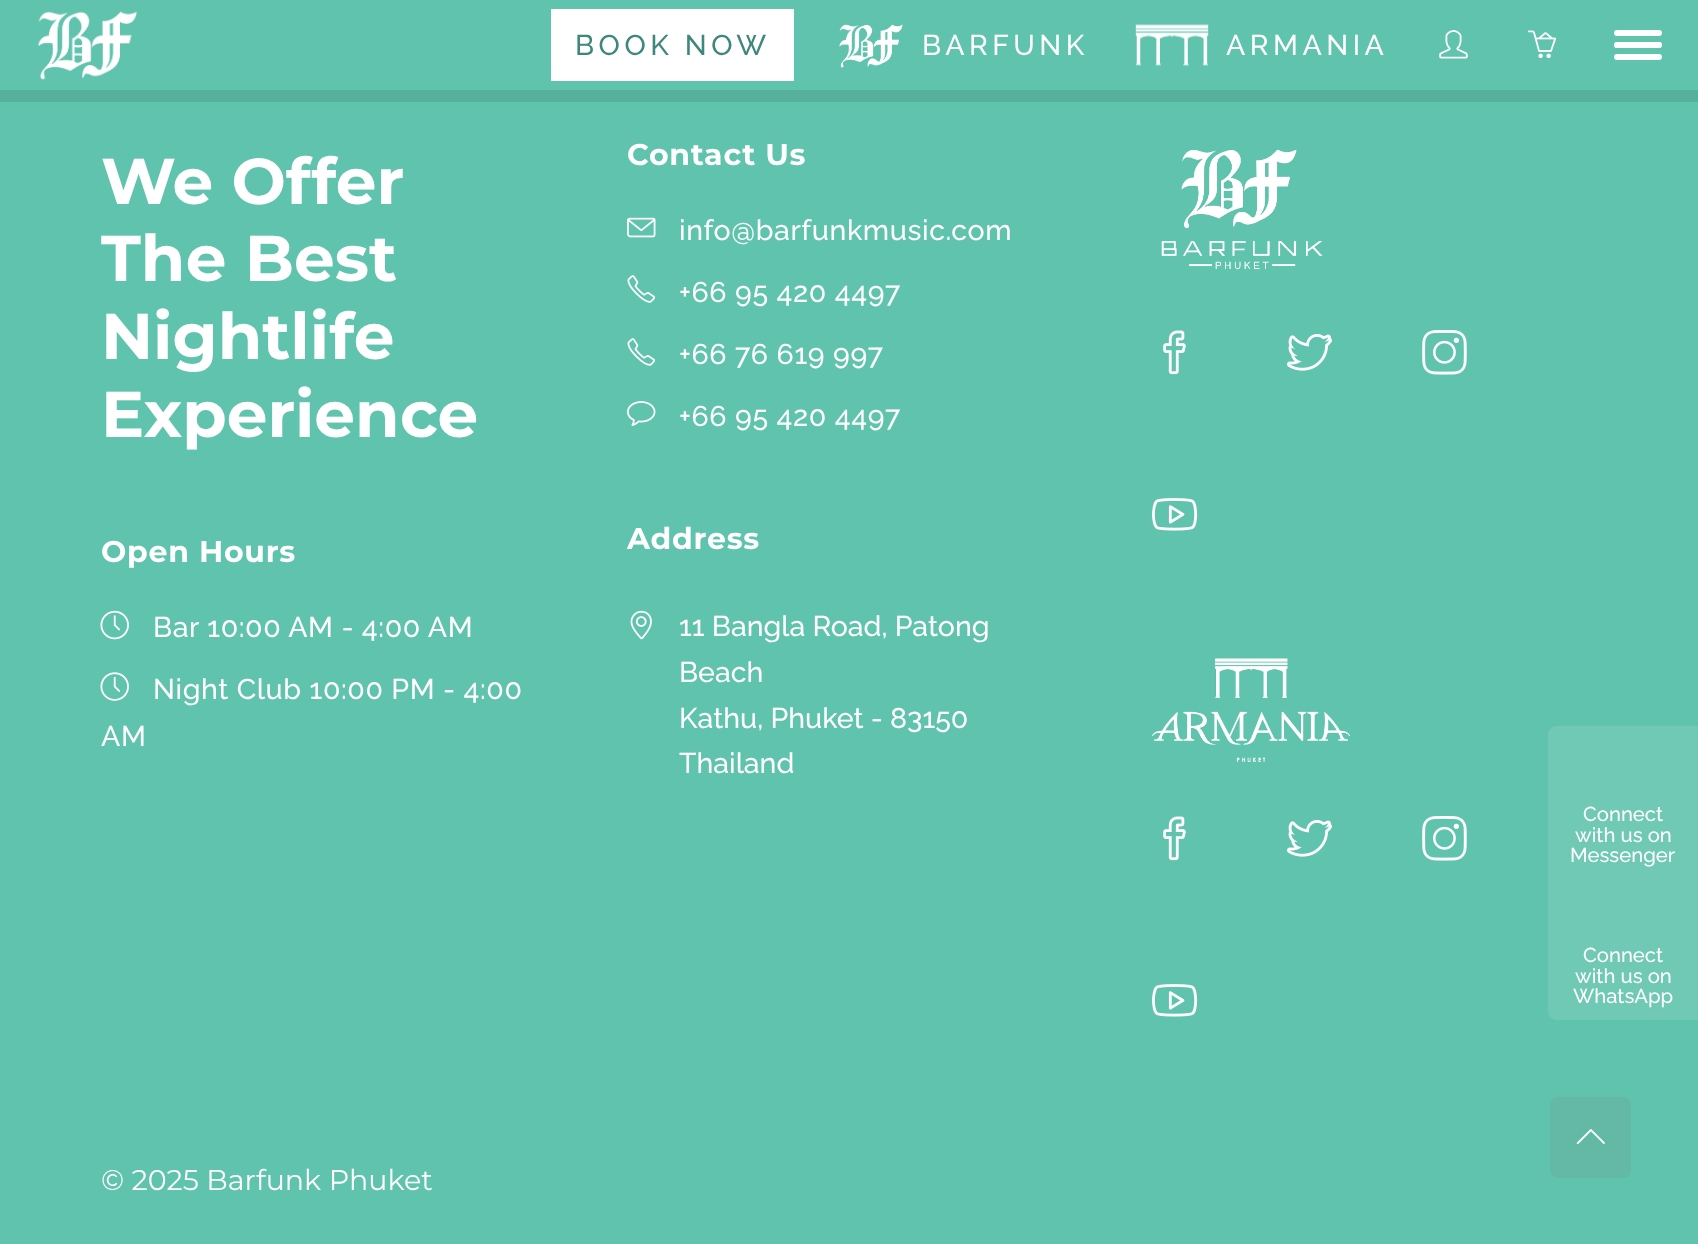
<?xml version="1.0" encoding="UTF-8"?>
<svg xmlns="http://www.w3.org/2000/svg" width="1698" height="1244">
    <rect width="100%" height="100%" fill="#60C3AD"/>
    <rect x="0" y="90" width="1698" height="12" fill="#56B09C"/>
    <image x="38" y="11" width="99" height="69" href="img_01.png"/>
    <image x="1614" y="30" width="48" height="30" href="img_02.png"/>
    <rect x="551" y="9" width="243" height="72" fill="#FFFFFF"/>
    <text x="575" y="55" font-family="Raleway" font-size="28.5" font-weight="500" letter-spacing="4.5" fill="#3E877C">BOOK NOW</text>
    <image x="839" y="24" width="64" height="44" href="img_03.png"/>
    <text x="922" y="55" font-family="Raleway" font-size="28.5" font-weight="500" letter-spacing="4.5" fill="#FFFFFF">BARFUNK</text>
    <image x="1135" y="24" width="74" height="42" href="img_04.png"/>
    <text x="1226" y="55" font-family="Raleway" font-size="28.5" font-weight="500" letter-spacing="4.5" fill="#FFFFFF">ARMANIA</text>
    <image x="1439" y="30" width="29" height="29" href="img_05.png"/>
    <image x="1527" y="30" width="30" height="29" href="img_06.png"/>
    <text font-family="Montserrat" font-size="64.5" font-weight="700" fill="#FFFFFF">
        <tspan x="101" y="204">We Offer</tspan>
        <tspan x="101" y="281">The Best</tspan>
        <tspan x="101" y="359">Nightlife</tspan>
        <tspan x="101" y="437">Experience</tspan>
    </text>
    <text x="101" y="562" font-family="Montserrat" font-size="30" font-weight="700" letter-spacing="0.75" fill="#FFFFFF">Open Hours</text>
    <image x="100" y="610" width="29" height="30" href="img_07.png"/>
    <text x="153" y="637" font-family="Raleway" font-size="28.5" font-weight="500" letter-spacing="0.6" fill="#FFFFFF">Bar 10:00 AM - 4:00 AM</text>
    <image x="100" y="672" width="29" height="29" href="img_08.png"/>
    <text x="153" y="699" font-family="Raleway" font-size="28.5" font-weight="500" letter-spacing="0.6" fill="#FFFFFF">Night Club 10:00 PM - 4:00</text>
    <text x="101" y="746" font-family="Raleway" font-size="28.5" font-weight="500" letter-spacing="0.6" fill="#FFFFFF">AM</text>
    <text x="627" y="165" font-family="Montserrat" font-size="30" font-weight="700" letter-spacing="0.75" fill="#FFFFFF">Contact Us</text>
    <image x="627" y="217" width="29" height="21" href="img_09.png"/>
    <text x="679" y="240" font-family="Raleway" font-size="28.5" font-weight="500" letter-spacing="0.6" fill="#FFFFFF">info@barfunkmusic.com</text>
    <image x="627" y="275" width="29" height="28" href="img_10.png"/>
    <text x="679" y="302" font-family="Raleway" font-size="28.5" font-weight="500" letter-spacing="0.6" fill="#FFFFFF">+66 95 420 4497</text>
    <image x="627" y="338" width="29" height="28" href="img_10.png"/>
    <text x="679" y="364" font-family="Raleway" font-size="28.5" font-weight="500" letter-spacing="0.6" fill="#FFFFFF">+66 76 619 997</text>
    <image x="627" y="401" width="29" height="25" href="img_11.png"/>
    <text x="679" y="426" font-family="Raleway" font-size="28.5" font-weight="500" letter-spacing="0.6" fill="#FFFFFF">+66 95 420 4497</text>
    <text x="627" y="549" font-family="Montserrat" font-size="30" font-weight="700" letter-spacing="0.75" fill="#FFFFFF">Address</text>
    <image x="630" y="610" width="22" height="30" href="img_12.png"/>
    <text font-family="Raleway" font-size="28.5" font-weight="500" fill="#FFFFFF">
        <tspan x="679" y="636">11 Bangla Road, Patong</tspan>
        <tspan x="679" y="682">Beach</tspan>
        <tspan x="679" y="728">Kathu, Phuket - 83150</tspan>
        <tspan x="679" y="773">Thailand</tspan>
    </text>
    <image x="1161" y="149" width="162" height="121" href="img_13.png"/>
    <image x="1163" y="330" width="23" height="45" href="img_14.png"/>
    <image x="1287" y="334" width="45" height="37" href="img_15.png"/>
    <image x="1422" y="330" width="45" height="45" href="img_16.png"/>
    <image x="1152" y="498" width="46" height="33" href="img_17.png"/>
    <image x="1152" y="658" width="198" height="104" href="img_18.png"/>
    <image x="1163" y="816" width="23" height="45" href="img_14.png"/>
    <image x="1287" y="820" width="45" height="37" href="img_15.png"/>
    <image x="1422" y="816" width="45" height="45" href="img_16.png"/>
    <image x="1152" y="984" width="46" height="33" href="img_17.png"/>
    <path d="M 1557 726 H 1698 V 1020 H 1557 C 1552 1020 1548 1016 1548 1011 V 735 C 1548 730 1552 726 1557 726 Z" fill="#70C9B5"/>
    <text x="1583" y="821" font-family="Raleway" font-size="20.25" font-weight="500" fill="#FFFFFF">Connect</text>
    <text x="1575" y="842" font-family="Raleway" font-size="20.25" font-weight="500" fill="#FFFFFF">with us on</text>
    <text x="1570" y="862" font-family="Raleway" font-size="20.25" font-weight="500" fill="#FFFFFF">Messenger</text>
    <text x="1583" y="962" font-family="Raleway" font-size="20.25" font-weight="500" fill="#FFFFFF">Connect</text>
    <text x="1575" y="983" font-family="Raleway" font-size="20.25" font-weight="500" fill="#FFFFFF">with us on</text>
    <text x="1573" y="1003" font-family="Raleway" font-size="20.25" font-weight="500" fill="#FFFFFF">WhatsApp</text>
    <text x="101" y="1190" font-family="Montserrat" font-size="28.5" fill="#FFFFFF">© 2025 Barfunk Phuket</text>
    <rect x="1550" y="1097" width="81" height="81" rx="8" fill="#64B9A6"/>
    <image x="1576" y="1129" width="29" height="16" href="img_19.png"/>
</svg>
